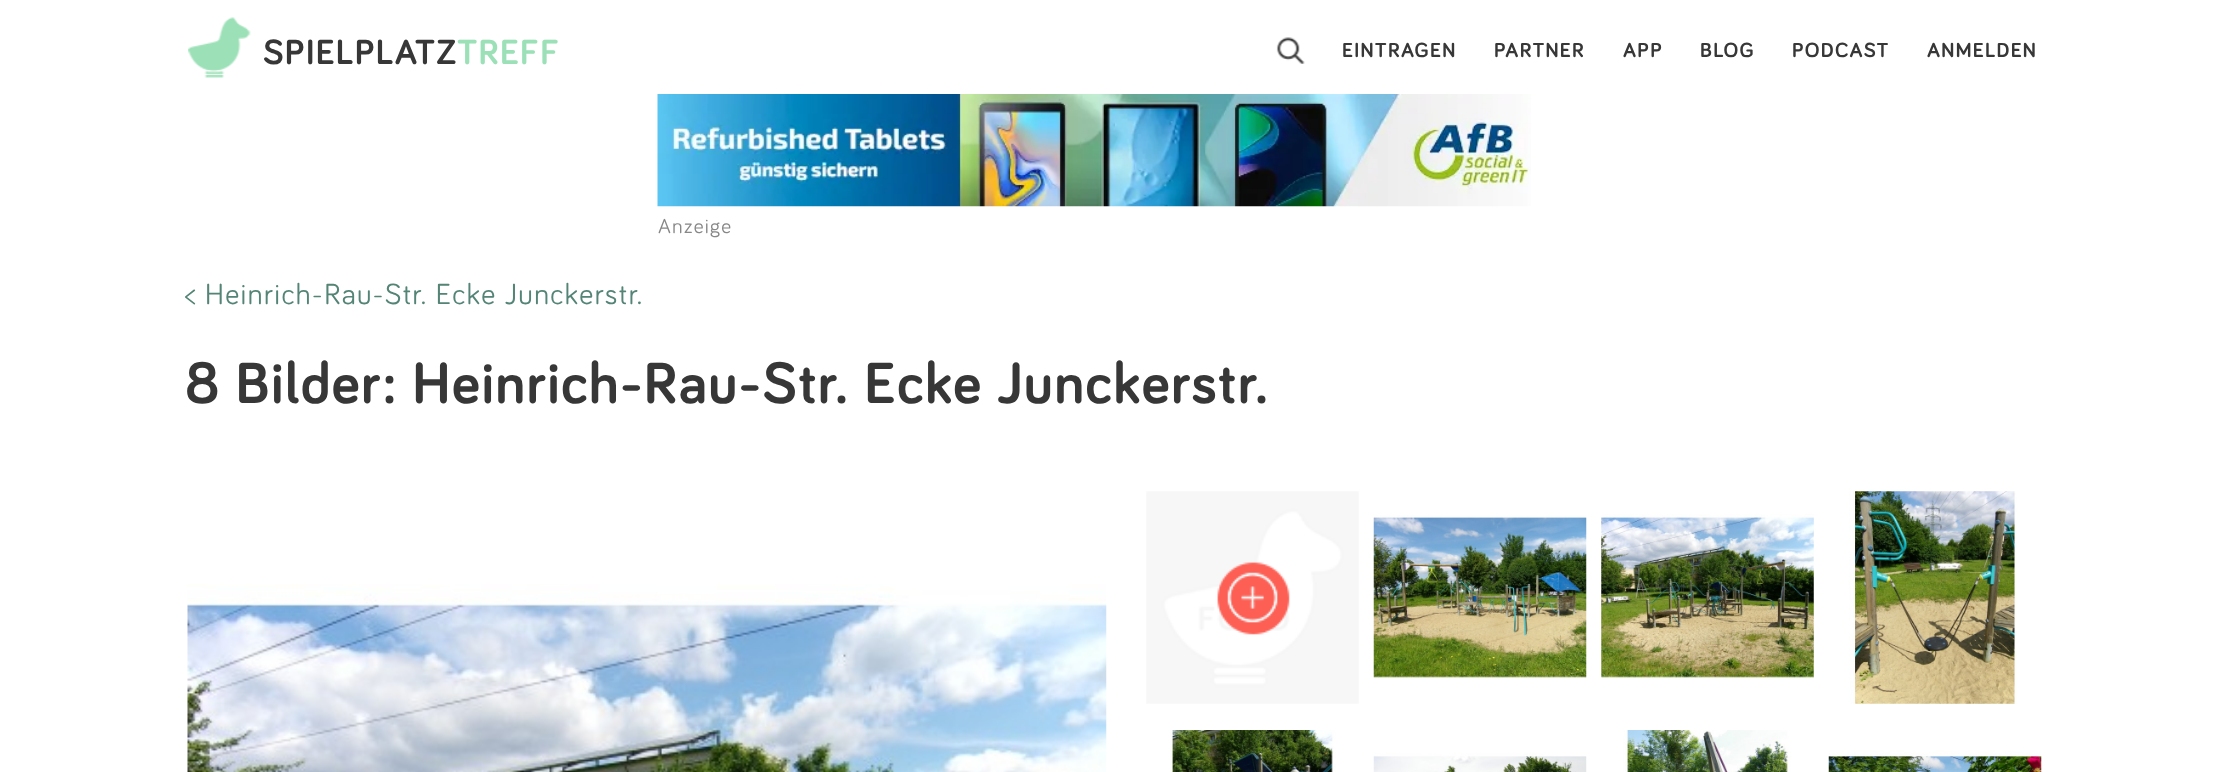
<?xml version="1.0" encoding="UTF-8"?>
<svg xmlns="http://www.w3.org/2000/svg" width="2225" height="772">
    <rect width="100%" height="100%" fill="#FFFFFF"/>
    <image x="188" y="17" width="63" height="61" href="img_01.png"/>
    <text x="263" y="64" font-family="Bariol" font-size="36" font-weight="700" letter-spacing="1.25" fill="#373737">SPIELPLATZ</text>
    <text x="457" y="64" font-family="Bariol" font-size="36" font-weight="700" letter-spacing="1.25" fill="#9CE0B7">TREFF</text>
    <image x="1276" y="37" width="29" height="27" href="img_02.png"/>
    <text x="1342" y="57" font-family="Bariol" font-size="21" font-weight="700" letter-spacing="1.25" fill="#373737">EINTRAGEN</text>
    <text x="1494" y="57" font-family="Bariol" font-size="21" font-weight="700" letter-spacing="1.25" fill="#373737">PARTNER</text>
    <text x="1623" y="57" font-family="Bariol" font-size="21" font-weight="700" letter-spacing="1.25" fill="#373737">APP</text>
    <text x="1700" y="57" font-family="Bariol" font-size="21" font-weight="700" letter-spacing="1.25" fill="#373737">BLOG</text>
    <text x="1792" y="57" font-family="Bariol" font-size="21" font-weight="700" letter-spacing="1.25" fill="#373737">PODCAST</text>
    <text x="1927" y="57" font-family="Bariol" font-size="21" font-weight="700" letter-spacing="1.25" fill="#373737">ANMELDEN</text>
    <image x="657" y="94" width="874" height="113" href="img_03.png"/>
    <text x="658" y="233" font-family="Bariol" font-size="21" letter-spacing="1.25" fill="#878787">Anzeige</text>
    <text x="185" y="304" font-family="Bariol" font-size="30" letter-spacing="1.25" fill="#538476">&lt; Heinrich-Rau-Str. Ecke Junckerstr.</text>
    <text x="185" y="403" font-family="Bariol" font-size="60" font-weight="700" letter-spacing="1.25" fill="#373737">8 Bilder: Heinrich-Rau-Str. Ecke Junckerstr.</text>
    <image x="187" y="584" width="920" height="188" href="img_04.png"/>
    <image x="1146" y="491" width="213" height="213" href="img_05.png"/>
    <image x="1373" y="515" width="214" height="165" href="img_06.png"/>
    <image x="1601" y="514" width="213" height="166" href="img_07.png"/>
    <image x="1849" y="491" width="168" height="213" href="img_08.png"/>
    <image x="1170" y="730" width="166" height="42" href="img_09.png"/>
    <image x="1373" y="752" width="214" height="20" href="img_10.png"/>
    <image x="1623" y="730" width="168" height="42" href="img_11.png"/>
    <image x="1828" y="750" width="214" height="22" href="img_12.png"/>
</svg>
